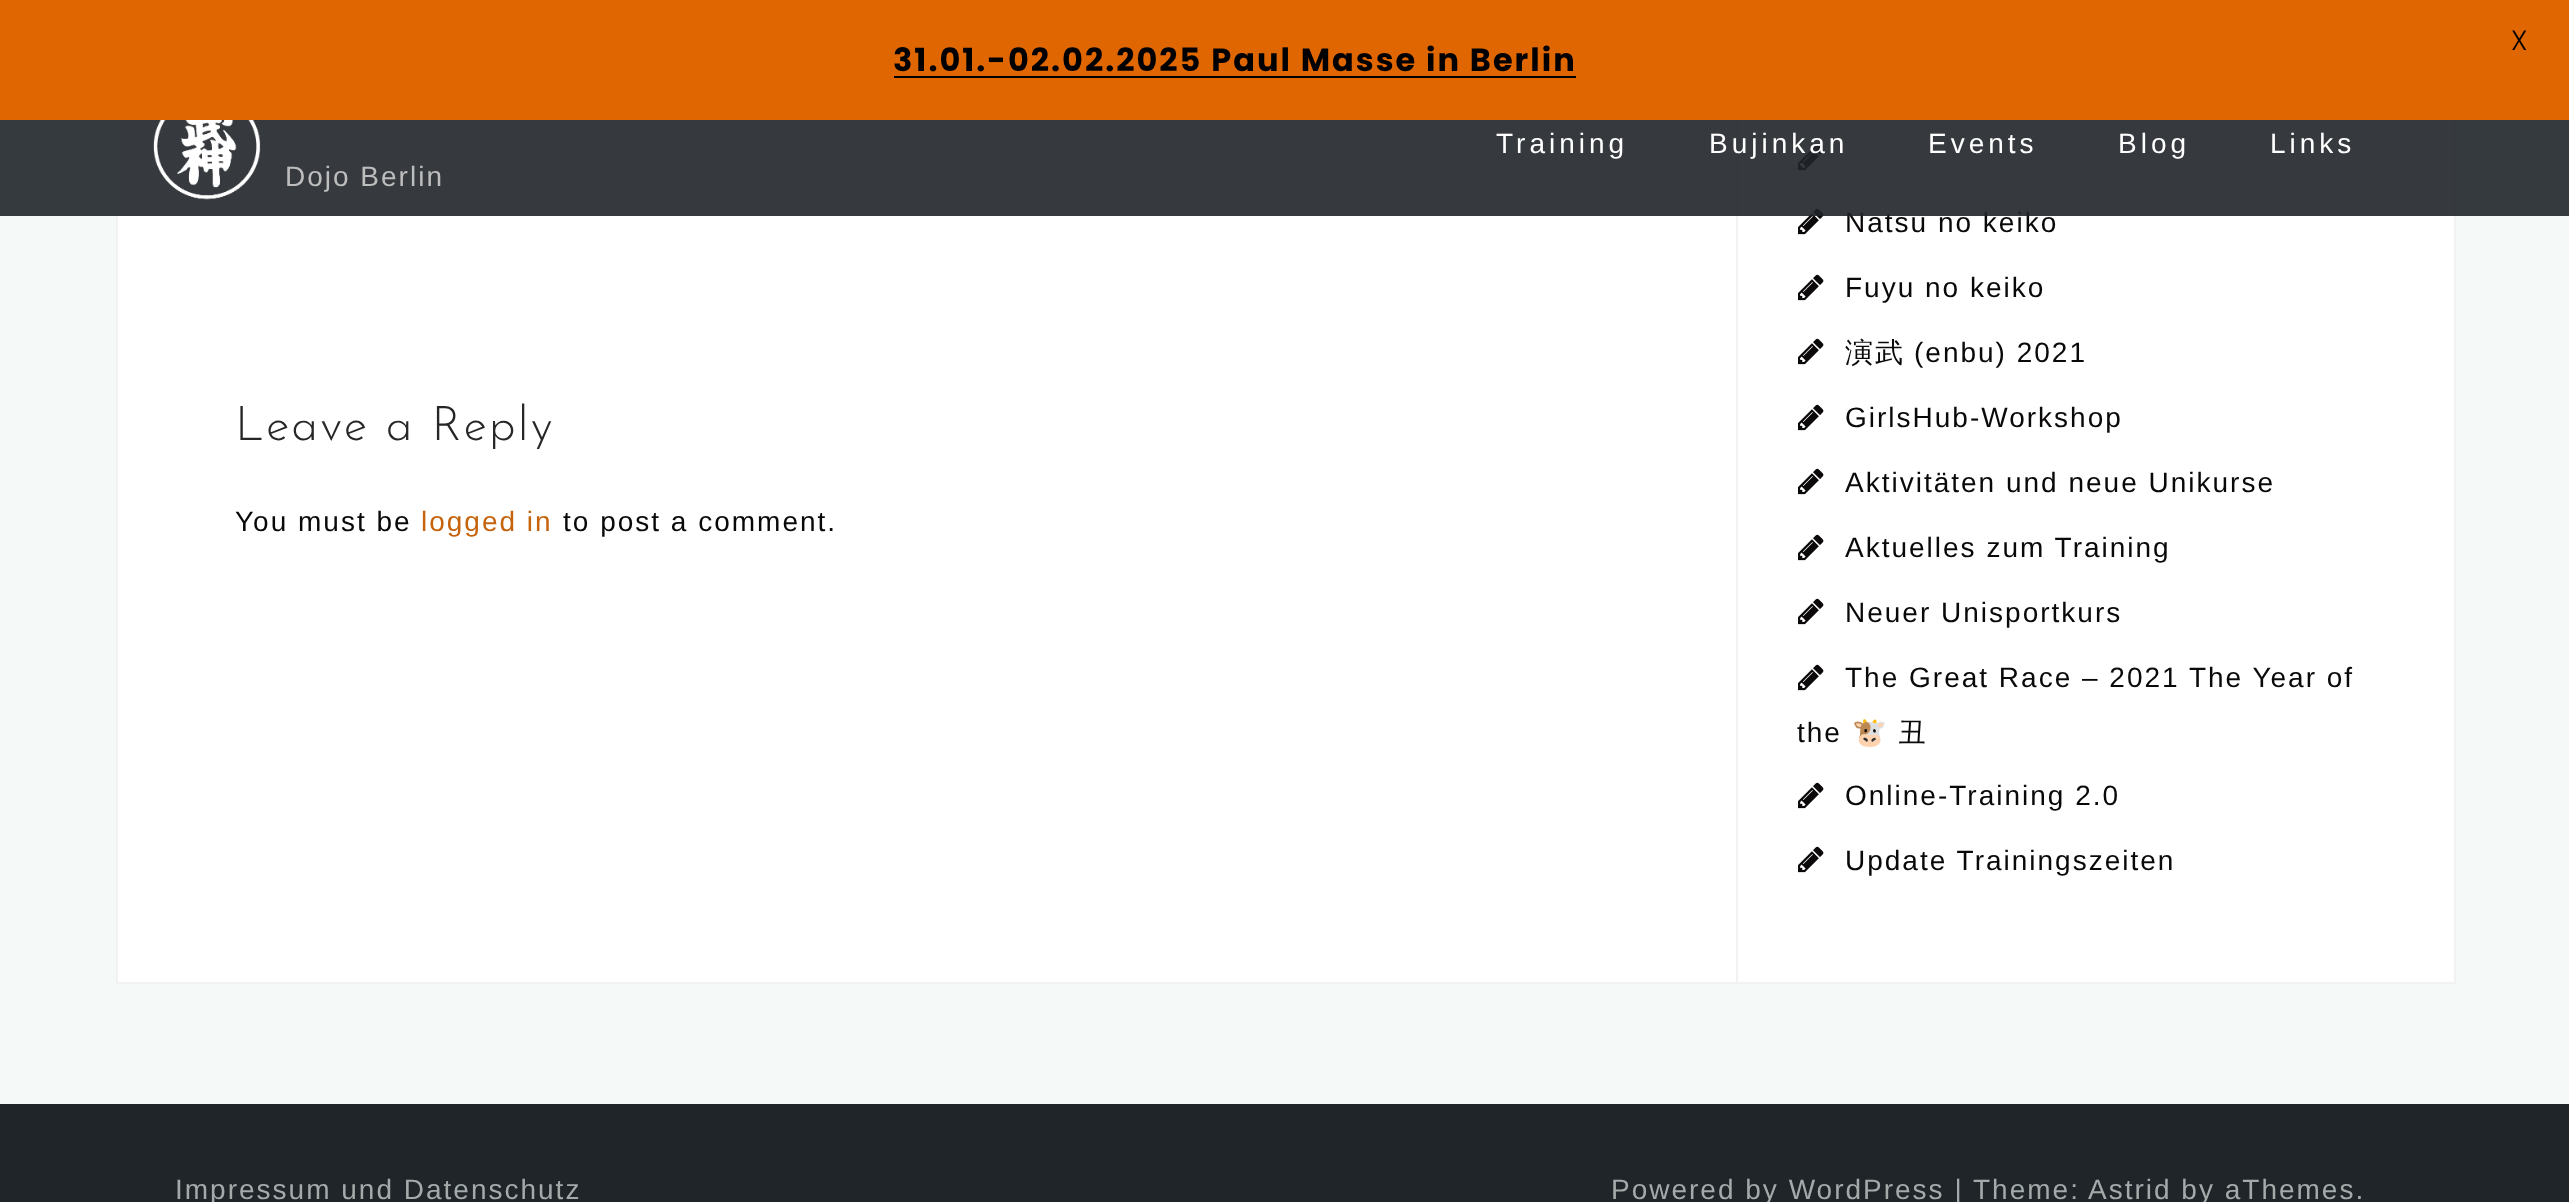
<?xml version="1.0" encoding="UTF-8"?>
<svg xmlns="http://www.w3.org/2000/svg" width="2569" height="1202">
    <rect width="100%" height="100%" fill="#F5F9F8"/>
    <rect x="1738" y="120" width="716" height="862" fill="#FFFFFF"/>
    <rect x="1737" y="-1" width="718" height="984" fill="none" stroke="#F2F2F3" stroke-width="2"/>
    <rect x="0" y="0" width="2569" height="120" fill="#E06602"/>
    <text x="2511" y="50" font-family="Poppins" font-size="28" font-weight="300" letter-spacing="2" fill="#000000">X</text>
    <text x="893" y="71" font-family="Poppins" font-size="32" font-weight="700" letter-spacing="2" fill="#000000">31.01.-02.02.2025 Paul Masse in Berlin</text>
    <rect x="894" y="76" width="682" height="2" fill="#000000"/>
    <rect x="118" y="120" width="1618" height="862" fill="#FFFFFF"/>
    <rect x="116" y="982" width="1620" height="2" fill="#F2F2F3"/>
    <rect x="116" y="120" width="2" height="864" fill="#F2F2F3"/>
    <image x="1798" y="144" width="26" height="27" href="img_02.png"/>
    <image x="1798" y="208" width="26" height="27" href="img_02.png"/>
    <text x="1845" y="232" font-family="Liberation Sans" font-size="28" letter-spacing="2" fill="#0A0808">Natsu no keiko</text>
    <rect x="0" y="120" width="2569" height="96" fill="#202529" fill-opacity="0.9"/>
    <text x="1496" y="153" font-family="Liberation Sans" font-size="28" letter-spacing="4" fill="#FFFFFF">Training</text>
    <text x="1709" y="153" font-family="Liberation Sans" font-size="28" letter-spacing="4" fill="#FFFFFF">Bujinkan</text>
    <text x="1928" y="153" font-family="Liberation Sans" font-size="28" letter-spacing="4" fill="#FFFFFF">Events</text>
    <text x="2118" y="153" font-family="Liberation Sans" font-size="28" letter-spacing="4" fill="#FFFFFF">Blog</text>
    <text x="2270" y="153" font-family="Liberation Sans" font-size="28" letter-spacing="4" fill="#FFFFFF">Links</text>
    <image x="153" y="120" width="108" height="80" href="img_01.png"/>
    <text x="285" y="186" font-family="Liberation Sans" font-size="28" letter-spacing="2" fill="#BDBDBD">Dojo Berlin</text>
    <text x="235" y="440" font-family="Josefin Sans" font-size="48" font-weight="300" letter-spacing="2" fill="#272727">Leave a Reply</text>
    <text x="235" y="531" font-family="Liberation Sans" font-size="28" letter-spacing="2" fill="#0A0808">You must be</text>
    <text x="421" y="531" font-family="Liberation Sans" font-size="28" letter-spacing="2" fill="#C6640D">logged in</text>
    <text x="563" y="531" font-family="Liberation Sans" font-size="28" letter-spacing="2" fill="#0A0808">to post a comment.</text>
    <image x="1798" y="274" width="26" height="27" href="img_02.png"/>
    <text x="1845" y="297" font-family="Liberation Sans" font-size="28" letter-spacing="2" fill="#0A0808">Fuyu no keiko</text>
    <image x="1798" y="338" width="26" height="27" href="img_02.png"/>
    <text x="1845" y="362" font-family="WenQuanYi Zen Hei" font-size="28" font-weight="500" letter-spacing="2" fill="#0A0808">演武</text>
    <text x="1914" y="362" font-family="Liberation Sans" font-size="28" letter-spacing="2" fill="#0A0808">(enbu) 2021</text>
    <image x="1798" y="404" width="26" height="27" href="img_02.png"/>
    <text x="1845" y="427" font-family="Liberation Sans" font-size="28" letter-spacing="2" fill="#0A0808">GirlsHub-Workshop</text>
    <image x="1798" y="468" width="26" height="27" href="img_02.png"/>
    <text x="1845" y="492" font-family="Liberation Sans" font-size="28" letter-spacing="2" fill="#0A0808">Aktivitäten und neue Unikurse</text>
    <image x="1798" y="534" width="26" height="27" href="img_02.png"/>
    <text x="1845" y="557" font-family="Liberation Sans" font-size="28" letter-spacing="2" fill="#0A0808">Aktuelles zum Training</text>
    <image x="1798" y="598" width="26" height="27" href="img_02.png"/>
    <text x="1845" y="622" font-family="Liberation Sans" font-size="28" letter-spacing="2" fill="#0A0808">Neuer Unisportkurs</text>
    <image x="1798" y="664" width="26" height="27" href="img_02.png"/>
    <text x="1845" y="687" font-family="Liberation Sans" font-size="28" letter-spacing="2" fill="#0A0808">The Great Race – 2021 The Year of</text>
    <text x="1797" y="742" font-family="Liberation Sans" font-size="28" letter-spacing="2" fill="#0A0808">the</text>
    <text x="1852" y="742" font-family="Noto Color Emoji" font-size="28" letter-spacing="2" fill="#0A0808">🐮</text>
    <text x="1898" y="742" font-family="WenQuanYi Zen Hei" font-size="28" font-weight="500" letter-spacing="2" fill="#0A0808">丑</text>
    <image x="1798" y="782" width="26" height="27" href="img_02.png"/>
    <text x="1845" y="805" font-family="Liberation Sans" font-size="28" letter-spacing="2" fill="#0A0808">Online-Training 2.0</text>
    <image x="1798" y="846" width="26" height="27" href="img_02.png"/>
    <text x="1845" y="870" font-family="Liberation Sans" font-size="28" letter-spacing="2" fill="#0A0808">Update Trainingszeiten</text>
    <rect x="0" y="1104" width="2569" height="98" fill="#202529"/>
    <text x="175" y="1199" font-family="Liberation Sans" font-size="28" letter-spacing="2" fill="#A3AAAA">Impressum und Datenschutz</text>
    <text x="1611" y="1199" font-family="Liberation Sans" font-size="28" letter-spacing="2" fill="#A3AAAA">Powered by WordPress |</text>
    <text x="1973" y="1199" font-family="Liberation Sans" font-size="28" letter-spacing="2" fill="#A3AAAA">Theme:</text>
    <text x="2088" y="1199" font-family="Liberation Sans" font-size="28" letter-spacing="2" fill="#A3AAAA">Astrid by aThemes.</text>
</svg>
